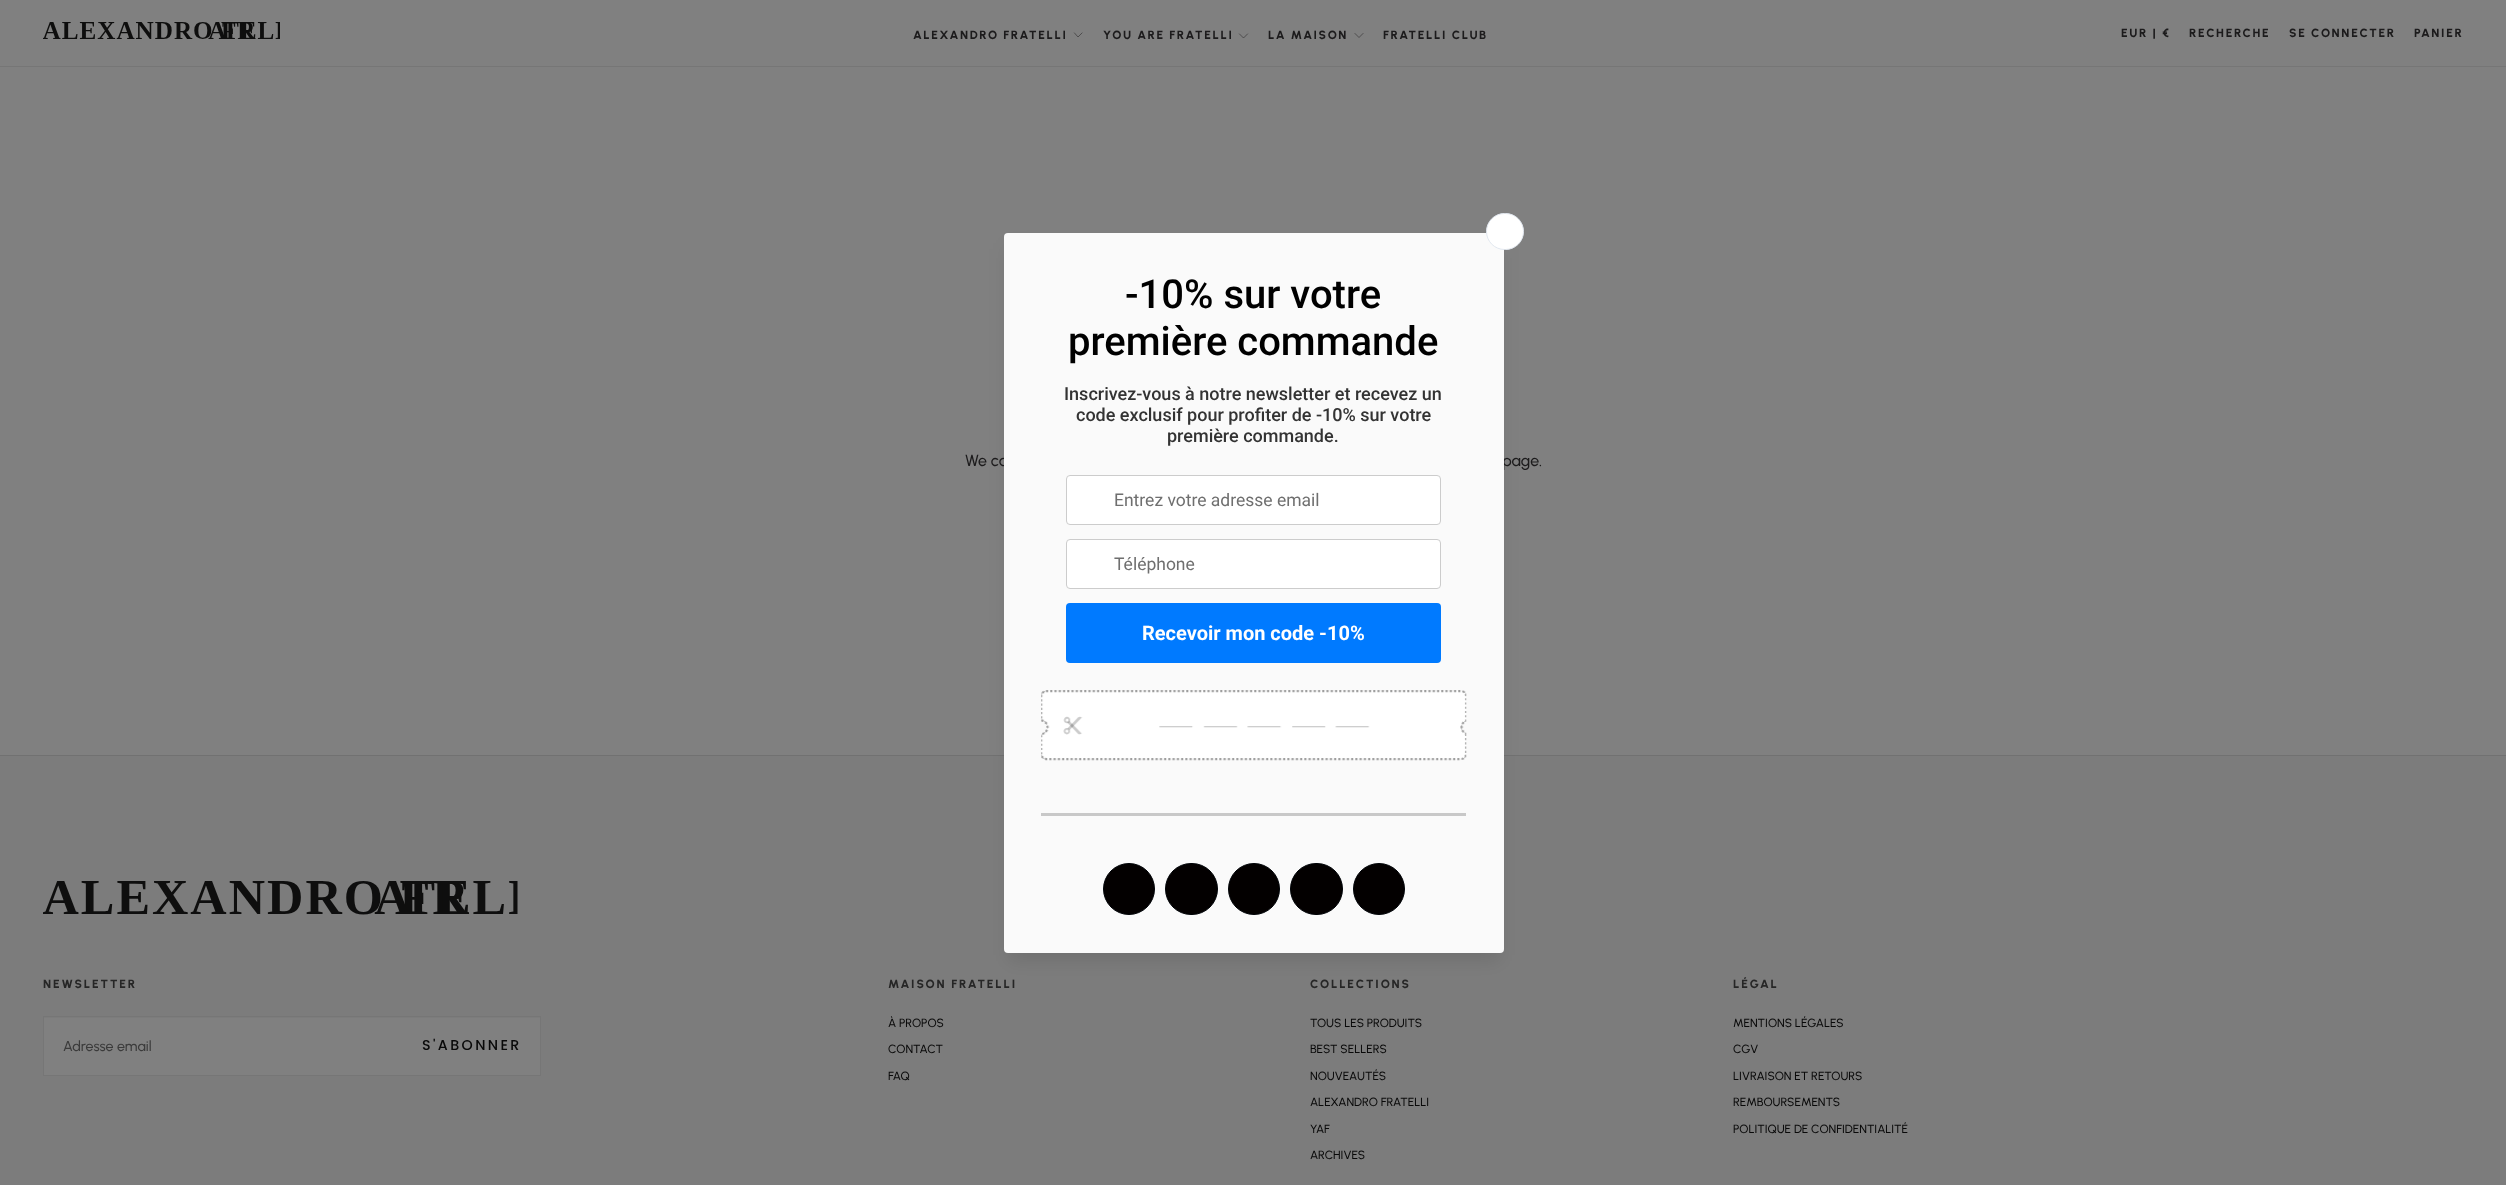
<?xml version="1.0" encoding="UTF-8"?>
<svg xmlns="http://www.w3.org/2000/svg" width="2506" height="1185">
    <defs>
        <filter id="blur1" x="-50%" y="-200%" width="200%" height="500%"><feGaussianBlur stdDeviation="9.5"/></filter>
    </defs>
    <rect width="100%" height="100%" fill="#808080"/>
    <rect x="0" y="66" width="2506" height="1" fill="#767676"/>
    <image x="43" y="22" width="237" height="17" href="img_01.png"/>
    <text x="913" y="39" font-family="Urbanist" font-size="11.9" font-weight="800" letter-spacing="1.7" fill="#1C1B1C">ALEXANDRO FRATELLI</text>
    <path d="M 1082 33 L 1078 37 L 1074.5 33" fill="none" stroke="#1C1B1C" stroke-width="0.5" stroke-linecap="square"/>
    <text x="1103" y="39" font-family="Urbanist" font-size="11.9" font-weight="800" letter-spacing="1.7" fill="#1C1B1C">YOU ARE FRATELLI</text>
    <path d="M 1247.5 34 L 1243.5 38 L 1239.5 34" fill="none" stroke="#1C1B1C" stroke-width="0.5" stroke-linecap="square"/>
    <text x="1268" y="39" font-family="Urbanist" font-size="11.9" font-weight="800" letter-spacing="1.7" fill="#1C1B1C">LA MAISON</text>
    <path d="M 1363 33.5 L 1359 37.5 L 1355 33.5" fill="none" stroke="#1C1B1C" stroke-width="0.5" stroke-linecap="square"/>
    <text x="1383" y="39" font-family="Urbanist" font-size="11.9" font-weight="800" letter-spacing="1.7" fill="#1C1B1C">FRATELLI CLUB</text>
    <text x="2121" y="37" font-family="Urbanist" font-size="11.9" font-weight="800" letter-spacing="1.7" fill="#1C1B1C">EUR | €</text>
    <text x="2189" y="37" font-family="Urbanist" font-size="11.9" font-weight="800" letter-spacing="1.7" fill="#1C1B1C">RECHERCHE</text>
    <text x="2289" y="37" font-family="Urbanist" font-size="11.9" font-weight="800" letter-spacing="1.7" fill="#1C1B1C">SE CONNECTER</text>
    <text x="2414" y="37" font-family="Urbanist" font-size="11.9" font-weight="800" letter-spacing="1.7" fill="#1C1B1C">PANIER</text>
    <rect x="0" y="756" width="2506" height="429" fill="#7C7C7C"/>
    <rect x="0" y="755" width="2506" height="1" fill="#717171"/>
    <rect x="1008" y="249" width="492" height="712" fill="#000000" fill-opacity="0.1" filter="url(#blur1)"/>
    <text x="965" y="466" font-family="Urbanist" font-size="16" font-weight="500" fill="#1C1B1C">We ca</text>
    <text x="1502" y="466" font-family="Urbanist" font-size="16" font-weight="500" fill="#1C1B1C">page.</text>
    <rect x="1004" y="233" width="500" height="720" rx="4" fill="#FAFAFA"/>
    <rect x="1486.5" y="213.5" width="37" height="36" rx="18" fill="#FFFFFF" stroke="#E2E8F0"/>
    <text x="1125" y="308" font-family="Roboto" font-size="40" font-weight="500" fill="#000000">-10% sur votre</text>
    <text x="1068" y="355" font-family="Roboto" font-size="40" font-weight="500" fill="#000000">première commande</text>
    <text x="1064" y="400" font-family="Roboto" font-size="18" font-weight="500" fill="#333333">Inscrivez-vous à notre newsletter et recevez un</text>
    <text x="1076" y="421" font-family="Roboto" font-size="18" font-weight="500" fill="#333333">code exclusif pour profiter de -10% sur votre</text>
    <text x="1167" y="442" font-family="Roboto" font-size="18" font-weight="500" fill="#333333">première commande.</text>
    <rect x="1066.5" y="475.5" width="374" height="49" rx="3.5" fill="#FFFFFF" stroke="#CCCCCC"/>
    <text x="1114" y="506" font-family="Roboto" font-size="17.5" fill="#6F6F6F">Entrez votre adresse email</text>
    <rect x="1066.5" y="539.5" width="374" height="49" rx="3.5" fill="#FFFFFF" stroke="#CCCCCC"/>
    <text x="1114" y="570" font-family="Roboto" font-size="17.5" fill="#6F6F6F">Téléphone</text>
    <rect x="1066" y="603" width="375" height="60" rx="4" fill="#007AFF"/>
    <text x="1142" y="640" font-family="Roboto" font-size="20" font-weight="700" fill="#FFFFFF">Recevoir mon code -10%</text>
    <image x="1041" y="690" width="426" height="71" href="img_02.png"/>
    <rect x="1041" y="813" width="425" height="3" fill="#C8C8C8"/>
    <circle cx="1129" cy="889" r="25.5" fill="#030000" stroke="#000307"/>
    <rect x="1165.5" y="863.5" width="52" height="51" rx="25.5" fill="#030000" stroke="#000307"/>
    <circle cx="1254" cy="889" r="25.5" fill="#030000" stroke="#000307"/>
    <rect x="1290.5" y="863.5" width="52" height="51" rx="25.5" fill="#030000" stroke="#000307"/>
    <circle cx="1379" cy="889" r="25.5" fill="#030000" stroke="#000307"/>
    <image x="43" y="881" width="475" height="34" href="img_03.png"/>
    <text x="43" y="988" font-family="Urbanist" font-size="11.9" font-weight="800" letter-spacing="1.9" fill="#262626">NEWSLETTER</text>
    <rect x="43.5" y="1016.5" width="497" height="59" fill="none" stroke="#767676"/>
    <rect x="44" y="1018" width="496" height="57" fill="#808080"/>
    <text x="63" y="1051" font-family="Urbanist" font-size="14.25" font-weight="500" fill="#3B3B3B">Adresse email</text>
    <text x="422" y="1050" font-family="Poppins" font-size="14.25" font-weight="500" letter-spacing="2.4" fill="#090909">S'ABONNER</text>
    <text x="888" y="988" font-family="Urbanist" font-size="11.9" font-weight="800" letter-spacing="1.9" fill="#262626">MAISON FRATELLI</text>
    <text x="888" y="1027" font-family="Urbanist" font-size="11.9" font-weight="500" fill="#090909">À PROPOS</text>
    <text x="888" y="1053" font-family="Urbanist" font-size="11.9" font-weight="500" fill="#090909">CONTACT</text>
    <text x="888" y="1080" font-family="Urbanist" font-size="11.9" font-weight="500" fill="#090909">FAQ</text>
    <text x="1310" y="988" font-family="Urbanist" font-size="11.9" font-weight="800" letter-spacing="1.9" fill="#262626">COLLECTIONS</text>
    <text x="1310" y="1027" font-family="Urbanist" font-size="11.9" font-weight="500" fill="#090909">TOUS LES PRODUITS</text>
    <text x="1310" y="1053" font-family="Urbanist" font-size="11.9" font-weight="500" fill="#090909">BEST SELLERS</text>
    <text x="1310" y="1080" font-family="Urbanist" font-size="11.9" font-weight="500" fill="#090909">NOUVEAUTÉS</text>
    <text x="1310" y="1106" font-family="Urbanist" font-size="11.9" font-weight="500" fill="#090909">ALEXANDRO FRATELLI</text>
    <text x="1310" y="1133" font-family="Urbanist" font-size="11.9" font-weight="500" fill="#090909">YAF</text>
    <text x="1310" y="1159" font-family="Urbanist" font-size="11.9" font-weight="500" fill="#090909">ARCHIVES</text>
    <text x="1733" y="988" font-family="Urbanist" font-size="11.9" font-weight="800" letter-spacing="1.9" fill="#262626">LÉGAL</text>
    <text x="1733" y="1027" font-family="Urbanist" font-size="11.9" font-weight="500" fill="#090909">MENTIONS LÉGALES</text>
    <text x="1733" y="1053" font-family="Urbanist" font-size="11.9" font-weight="500" fill="#090909">CGV</text>
    <text x="1733" y="1080" font-family="Urbanist" font-size="11.9" font-weight="500" fill="#090909">LIVRAISON ET RETOURS</text>
    <text x="1733" y="1106" font-family="Urbanist" font-size="11.9" font-weight="500" fill="#090909">REMBOURSEMENTS</text>
    <text x="1733" y="1133" font-family="Urbanist" font-size="11.9" font-weight="500" fill="#090909">POLITIQUE DE CONFIDENTIALITÉ</text>
</svg>
